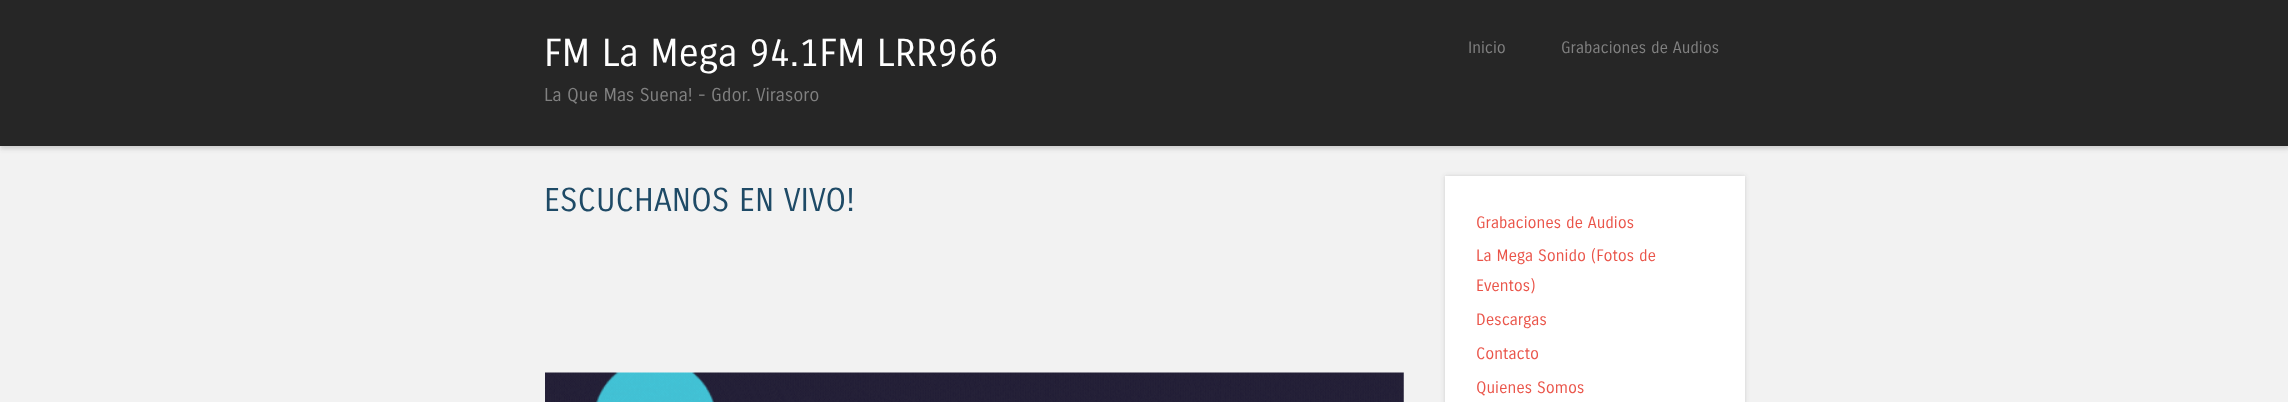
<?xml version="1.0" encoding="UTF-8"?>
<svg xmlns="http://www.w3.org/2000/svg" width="2288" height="402">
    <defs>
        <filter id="blur1" x="-50%" y="-200%" width="200%" height="500%"><feGaussianBlur stdDeviation="2"/></filter>
    </defs>
    <rect width="100%" height="100%" fill="#F2F2F2"/>
    <rect x="0" y="3" width="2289" height="146" fill="#646464" fill-opacity="0.25" filter="url(#blur1)"/>
    <rect x="0" y="0" width="2288" height="146" fill="#262626"/>
    <text x="544" y="66" font-family="Carrois Gothic" font-size="38" fill="#FFFFFF">FM La Mega 94.1FM LRR966</text>
    <text x="544" y="101" font-family="Carrois Gothic" font-size="18" fill="#818181">La Que Mas Suena! - Gdor. Virasoro</text>
    <text x="1468" y="53" font-family="Carrois Gothic" font-size="16" fill="#818181">Inicio</text>
    <text x="1561" y="53" font-family="Carrois Gothic" font-size="16" fill="#818181">Grabaciones de Audios</text>
    <text x="544" y="211" font-family="Carrois Gothic" font-size="32" fill="#1E4A66">ESCUCHANOS EN VIVO!</text>
    <image x="545" y="372" width="859" height="30" href="img_01.png"/>
    <rect x="1445" y="176" width="300" height="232" fill="#646464" fill-opacity="0.25" filter="url(#blur1)"/>
    <rect x="1445" y="176" width="300" height="226" fill="#FFFFFF"/>
    <text x="1476" y="228" font-family="Carrois Gothic" font-size="16" fill="#EA5449">Grabaciones de Audios</text>
    <text font-family="Carrois Gothic" font-size="16" fill="#EA5449">
        <tspan x="1476" y="261">La Mega Sonido (Fotos de</tspan>
        <tspan x="1476" y="291">Eventos)</tspan>
    </text>
    <text x="1476" y="325" font-family="Carrois Gothic" font-size="16" fill="#EA5449">Descargas</text>
    <text x="1476" y="359" font-family="Carrois Gothic" font-size="16" fill="#EA5449">Contacto</text>
    <text x="1476" y="393" font-family="Carrois Gothic" font-size="16" fill="#EA5449">Quienes Somos</text>
</svg>
